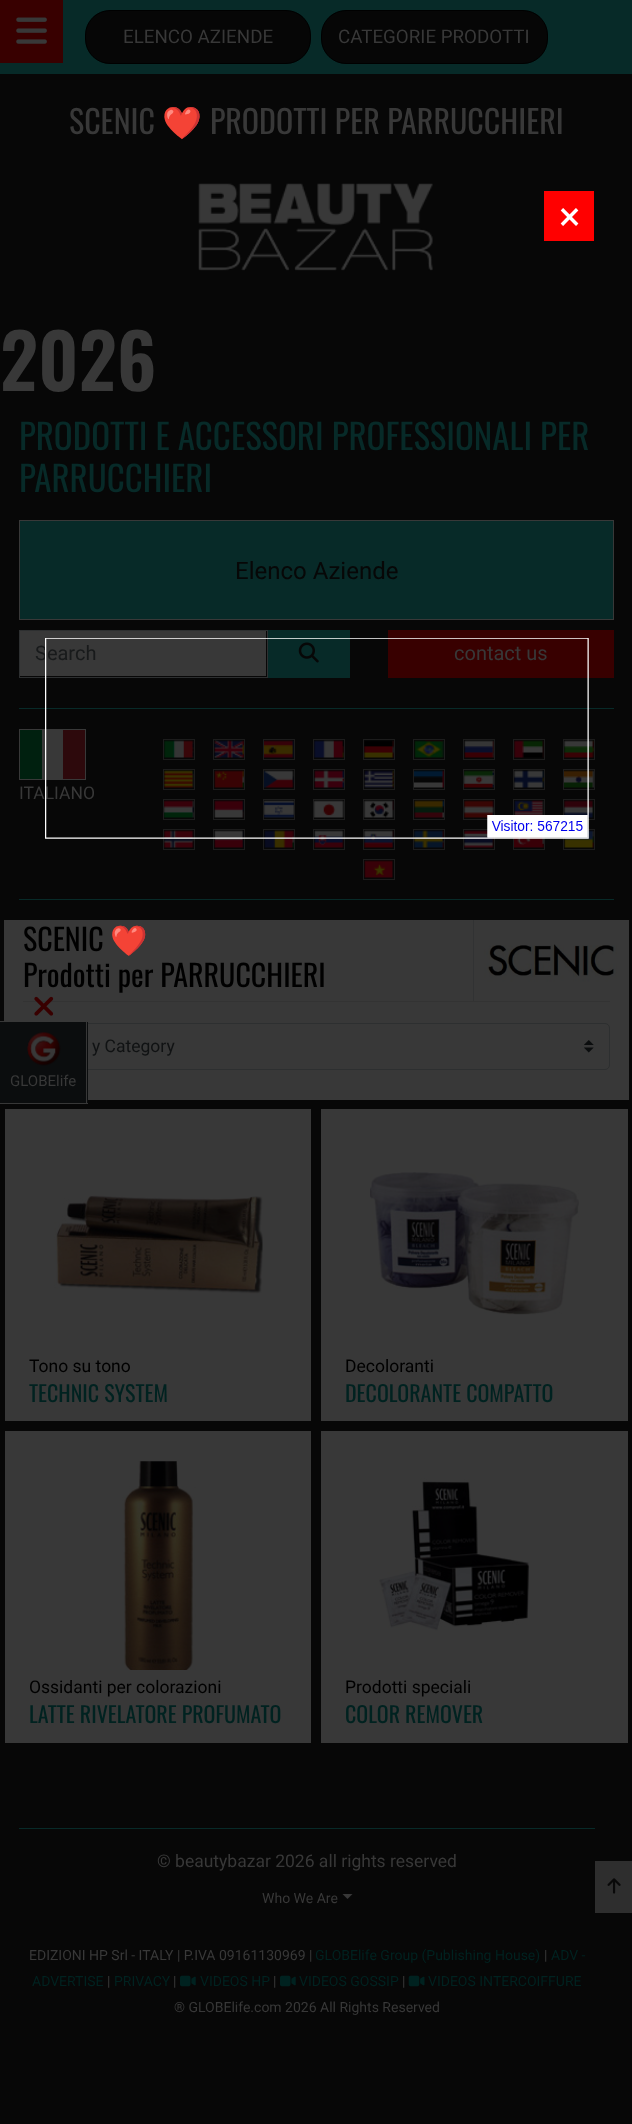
<?xml version="1.0" encoding="UTF-8"?>
<svg xmlns="http://www.w3.org/2000/svg" width="632" height="2124">
    <rect width="100%" height="100%" fill="#070707"/>
    <rect x="0" y="0" width="632" height="74" fill="#072A28"/>
    <rect x="0" y="0" width="63" height="63" fill="#380000"/>
    <image x="16" y="17" width="31" height="27" href="img_01.png"/>
    <rect x="85.5" y="10.5" width="225" height="53" rx="24.5" fill="#060606" stroke="#000000"/>
    <text x="123" y="43" font-family="Roboto" font-size="18.75" fill="#383838">ELENCO AZIENDE</text>
    <rect x="321.5" y="10.5" width="226" height="53" rx="24.5" fill="#060606" stroke="#000000"/>
    <text x="338" y="43" font-family="Roboto" font-size="18.75" fill="#383838">CATEGORIE PRODOTTI</text>
    <text x="69" y="134" font-family="Oswald" font-size="32" fill="#383838">SCENIC</text>
    <text x="162" y="134" font-family="Noto Color Emoji" font-size="32" fill="#383838">❤️</text>
    <text x="210" y="134" font-family="Oswald" font-size="32" fill="#383838">PRODOTTI PER PARRUCCHIERI</text>
    <rect x="544" y="191" width="50" height="50" fill="#FF0000"/>
    <text x="559" y="230" font-family="Roboto" font-size="40" fill="#FFFFFF">×</text>
    <rect x="20" y="631" width="246" height="45" fill="#383838"/>
    <rect x="19.5" y="630.5" width="248" height="47" fill="none" stroke="#2D2F30"/>
    <text x="35" y="660" font-family="Roboto" font-size="20" fill="#181A1B">Search</text>
    <rect x="268" y="630" width="82" height="48" fill="#072A28"/>
    <image x="298" y="642" width="21" height="21" href="img_04.png"/>
    <rect x="388" y="630" width="226" height="48" fill="#380000"/>
    <text x="454" y="660" font-family="Roboto" font-size="20" fill="#383838">contact us</text>
    <rect x="19" y="708" width="595" height="1" fill="#072A28"/>
    <rect x="19.5" y="729.5" width="66" height="50" fill="none" stroke="#383838"/>
    <rect x="42" y="730" width="21" height="49" fill="#383838"/>
    <rect x="63" y="730" width="22" height="49" fill="#2D090C"/>
    <text x="19" y="799" font-family="Roboto" font-size="17.5" fill="#383838">ITALIANO</text>
    <image x="164" y="740" width="30" height="18" href="img_05.png"/>
    <rect x="163.5" y="739.5" width="31" height="20" fill="none" stroke="#1C1C1C"/>
    <image x="214" y="740" width="30" height="18" href="img_06.png"/>
    <rect x="213.5" y="739.5" width="31" height="20" fill="none" stroke="#1C1C1C"/>
    <image x="264" y="740" width="30" height="18" href="img_07.png"/>
    <rect x="263.5" y="739.5" width="31" height="20" fill="none" stroke="#1C1C1C"/>
    <image x="314" y="740" width="30" height="18" href="img_08.png"/>
    <rect x="313.5" y="739.5" width="31" height="20" fill="none" stroke="#1C1C1C"/>
    <image x="364" y="740" width="30" height="18" href="img_09.png"/>
    <rect x="363.5" y="739.5" width="31" height="20" fill="none" stroke="#1C1C1C"/>
    <image x="414" y="740" width="30" height="18" href="img_10.png"/>
    <rect x="413.5" y="739.5" width="31" height="20" fill="none" stroke="#1C1C1C"/>
    <image x="464" y="740" width="30" height="18" href="img_11.png"/>
    <rect x="463.5" y="739.5" width="31" height="20" fill="none" stroke="#1C1C1C"/>
    <image x="514" y="740" width="30" height="18" href="img_12.png"/>
    <rect x="513.5" y="739.5" width="31" height="20" fill="none" stroke="#1C1C1C"/>
    <image x="564" y="740" width="30" height="18" href="img_13.png"/>
    <rect x="563.5" y="739.5" width="31" height="20" fill="none" stroke="#1C1C1C"/>
    <image x="164" y="770" width="30" height="18" href="img_14.png"/>
    <rect x="163.5" y="769.5" width="31" height="20" fill="none" stroke="#1C1C1C"/>
    <image x="214" y="770" width="30" height="18" href="img_15.png"/>
    <rect x="213.5" y="769.5" width="31" height="20" fill="none" stroke="#1C1C1C"/>
    <image x="264" y="770" width="30" height="18" href="img_16.png"/>
    <rect x="263.5" y="769.5" width="31" height="20" fill="none" stroke="#1C1C1C"/>
    <image x="314" y="770" width="30" height="18" href="img_17.png"/>
    <rect x="313.5" y="769.5" width="31" height="20" fill="none" stroke="#1C1C1C"/>
    <image x="364" y="770" width="30" height="18" href="img_18.png"/>
    <rect x="363.5" y="769.5" width="31" height="20" fill="none" stroke="#1C1C1C"/>
    <image x="414" y="770" width="30" height="18" href="img_19.png"/>
    <rect x="413.5" y="769.5" width="31" height="20" fill="none" stroke="#1C1C1C"/>
    <image x="464" y="770" width="30" height="18" href="img_20.png"/>
    <rect x="463.5" y="769.5" width="31" height="20" fill="none" stroke="#1C1C1C"/>
    <image x="514" y="770" width="30" height="18" href="img_21.png"/>
    <rect x="513.5" y="769.5" width="31" height="20" fill="none" stroke="#1C1C1C"/>
    <image x="564" y="770" width="30" height="18" href="img_22.png"/>
    <rect x="563.5" y="769.5" width="31" height="20" fill="none" stroke="#1C1C1C"/>
    <image x="164" y="800" width="30" height="18" href="img_23.png"/>
    <rect x="163.5" y="799.5" width="31" height="20" fill="none" stroke="#1C1C1C"/>
    <image x="214" y="800" width="30" height="18" href="img_24.png"/>
    <rect x="213.5" y="799.5" width="31" height="20" fill="none" stroke="#1C1C1C"/>
    <image x="264" y="800" width="30" height="18" href="img_25.png"/>
    <rect x="263.5" y="799.5" width="31" height="20" fill="none" stroke="#1C1C1C"/>
    <image x="314" y="800" width="30" height="18" href="img_26.png"/>
    <rect x="313.5" y="799.5" width="31" height="20" fill="none" stroke="#1C1C1C"/>
    <image x="364" y="800" width="30" height="18" href="img_27.png"/>
    <rect x="363.5" y="799.5" width="31" height="20" fill="none" stroke="#1C1C1C"/>
    <image x="414" y="800" width="30" height="18" href="img_28.png"/>
    <rect x="413.5" y="799.5" width="31" height="20" fill="none" stroke="#1C1C1C"/>
    <image x="464" y="800" width="30" height="18" href="img_29.png"/>
    <rect x="463.5" y="799.5" width="31" height="20" fill="none" stroke="#1C1C1C"/>
    <image x="514" y="800" width="30" height="15" href="img_30.png"/>
    <rect x="513.5" y="799.5" width="31" height="20" fill="none" stroke="#1C1C1C"/>
    <image x="564" y="800" width="30" height="18" href="img_31.png"/>
    <rect x="563.5" y="799.5" width="31" height="20" fill="none" stroke="#1C1C1C"/>
    <image x="164" y="830" width="30" height="18" href="img_32.png"/>
    <rect x="163.5" y="829.5" width="31" height="20" fill="none" stroke="#1C1C1C"/>
    <image x="214" y="830" width="30" height="18" href="img_33.png"/>
    <rect x="213.5" y="829.5" width="31" height="20" fill="none" stroke="#1C1C1C"/>
    <image x="264" y="830" width="30" height="18" href="img_34.png"/>
    <rect x="263.5" y="829.5" width="31" height="20" fill="none" stroke="#1C1C1C"/>
    <image x="314" y="830" width="30" height="18" href="img_35.png"/>
    <rect x="313.5" y="829.5" width="31" height="20" fill="none" stroke="#1C1C1C"/>
    <image x="364" y="830" width="30" height="18" href="img_36.png"/>
    <rect x="363.5" y="829.5" width="31" height="20" fill="none" stroke="#1C1C1C"/>
    <image x="414" y="830" width="30" height="18" href="img_37.png"/>
    <rect x="413.5" y="829.5" width="31" height="20" fill="none" stroke="#1C1C1C"/>
    <image x="464" y="830" width="30" height="18" href="img_38.png"/>
    <rect x="463.5" y="829.5" width="31" height="20" fill="none" stroke="#1C1C1C"/>
    <image x="514" y="837" width="30" height="11" href="img_39.png"/>
    <rect x="513.5" y="829.5" width="31" height="20" fill="none" stroke="#1C1C1C"/>
    <image x="564" y="830" width="30" height="18" href="img_40.png"/>
    <rect x="563.5" y="829.5" width="31" height="20" fill="none" stroke="#1C1C1C"/>
    <image x="45" y="638" width="544" height="201" href="img_02.png"/>
    <image x="198" y="183" width="235" height="88" href="img_03.png"/>
    <text x="0" y="391" font-family="Oswald" font-size="75" font-weight="600" fill="#383838">2026</text>
    <text font-family="Oswald" font-size="35" fill="#072A28">
        <tspan x="19" y="450">PRODOTTI E ACCESSORI PROFESSIONALI PER</tspan>
        <tspan x="19" y="492">PARRUCCHIERI</tspan>
    </text>
    <rect x="19.5" y="520.5" width="594" height="99" fill="#072A28" stroke="#383838"/>
    <text x="235" y="579" font-family="Roboto" font-size="24" fill="#070707">Elenco Aziende</text>
    <rect x="20" y="730" width="22" height="49" fill="#00200F"/>
    <image x="364" y="860" width="29" height="18" href="img_41.png"/>
    <rect x="363.5" y="859.5" width="31" height="20" fill="none" stroke="#1C1C1C"/>
    <rect x="19" y="899" width="595" height="1" fill="#072A28"/>
    <rect x="4" y="920" width="625" height="180" fill="#383838"/>
    <text x="23" y="951" font-family="Oswald" font-size="30" fill="#000000">SCENIC</text>
    <text x="110" y="951" font-family="Noto Color Emoji" font-size="30" fill="#000000">❤️</text>
    <text x="23" y="987" font-family="Oswald" font-size="30" fill="#000000">Prodotti per PARRUCCHIERI</text>
    <rect x="473" y="920" width="1" height="81" fill="#313233"/>
    <image x="484" y="944" width="133" height="38" href="img_42.png"/>
    <rect x="23" y="1001" width="587" height="1" fill="#333333"/>
    <image x="584" y="1040" width="10" height="13" href="img_43.png"/>
    <rect x="23.5" y="1023.5" width="586" height="46" rx="4.5" fill="none" stroke="#2D2F30"/>
    <text x="92" y="1052" font-family="Roboto" font-size="17.5" fill="#101213">y Category</text>
    <rect x="5" y="1109" width="306" height="312" fill="#383838"/>
    <image x="54" y="1195" width="209" height="99" href="img_44.png"/>
    <text x="29" y="1372" font-family="Roboto" font-size="17.5" fill="#000000">Tono su tono</text>
    <text x="29" y="1402" font-family="Oswald" font-size="22" fill="#002220">TECHNIC SYSTEM</text>
    <rect x="321" y="1109" width="307" height="312" fill="#383838"/>
    <image x="370" y="1172" width="209" height="143" href="img_45.png"/>
    <text x="345" y="1372" font-family="Roboto" font-size="17.5" fill="#000000">Decoloranti</text>
    <text x="345" y="1402" font-family="Oswald" font-size="22" fill="#002220">DECOLORANTE COMPATTO</text>
    <rect x="5" y="1431" width="306" height="312" fill="#383838"/>
    <image x="122" y="1461" width="74" height="209" href="img_46.png"/>
    <text x="29" y="1693" font-family="Roboto" font-size="17.5" fill="#000000">Ossidanti per colorazioni</text>
    <text x="29" y="1723" font-family="Oswald" font-size="22" fill="#002220">LATTE RIVELATORE PROFUMATO</text>
    <rect x="321" y="1431" width="307" height="312" fill="#383838"/>
    <image x="379" y="1478" width="151" height="153" href="img_47.png"/>
    <text x="345" y="1693" font-family="Roboto" font-size="17.5" fill="#000000">Prodotti speciali</text>
    <text x="345" y="1723" font-family="Oswald" font-size="22" fill="#002220">COLOR REMOVER</text>
    <image x="34" y="996" width="20" height="20" href="img_48.png"/>
    <rect x="0" y="1022" width="88" height="81" fill="#0B0D0E"/>
    <rect x="0" y="1021" width="4" height="1" fill="#373737"/>
    <rect x="86" y="1021" width="1" height="83" fill="#373737"/>
    <rect x="0" y="1103" width="88" height="1" fill="#373737"/>
    <image x="27" y="1032" width="34" height="34" href="img_49.png"/>
    <text x="10" y="1086" font-family="Roboto" font-size="15" fill="#383838">GLOBElife</text>
    <rect x="19" y="1828" width="576" height="1" fill="#072A28"/>
    <text x="157" y="1867" font-family="Roboto" font-size="17.5" fill="#383838">© beautybazar 2026 all rights reserved</text>
    <text x="262" y="1903" font-family="Roboto" font-size="14" fill="#383838">Who We Are</text>
    <path d="M 342.5 1894 H 352.5 L 347.5 1899 Z" fill="#383838"/>
    <text x="29" y="1960" font-family="Roboto" font-size="14" fill="#383838">EDIZIONI HP Srl - ITALY | P.IVA 09161130969 |</text>
    <text x="315" y="1960" font-family="Roboto" font-size="14" fill="#002220">GLOBElife Group (Publishing House)</text>
    <text x="544" y="1960" font-family="Roboto" font-size="14" fill="#383838">|</text>
    <text x="551" y="1960" font-family="Roboto" font-size="14" fill="#002220">ADV -</text>
    <text x="32" y="1986" font-family="Roboto" font-size="14" fill="#002220">ADVERTISE</text>
    <text x="107" y="1986" font-family="Roboto" font-size="14" fill="#383838">|</text>
    <text x="114" y="1986" font-family="Roboto" font-size="14" fill="#002220">PRIVACY</text>
    <text x="173" y="1986" font-family="Roboto" font-size="14" fill="#383838">|</text>
    <image x="180" y="1975" width="16" height="12" href="img_50.png"/>
    <text x="200" y="1986" font-family="Roboto" font-size="14" fill="#002220">VIDEOS HP</text>
    <text x="273" y="1986" font-family="Roboto" font-size="14" fill="#383838">|</text>
    <image x="280" y="1975" width="16" height="12" href="img_50.png"/>
    <text x="299" y="1986" font-family="Roboto" font-size="14" fill="#002220">VIDEOS GOSSIP</text>
    <text x="402" y="1986" font-family="Roboto" font-size="14" fill="#383838">|</text>
    <image x="408" y="1975" width="17" height="12" href="img_51.png"/>
    <text x="428" y="1986" font-family="Roboto" font-size="14" fill="#002220">VIDEOS INTERCOIFFURE</text>
    <text x="174" y="2012" font-family="Roboto" font-size="14" fill="#383838">® GLOBElife.com 2026 All Rights Reserved</text>
    <rect x="595" y="1861" width="37" height="52" fill="#2E2E2E"/>
    <image x="607" y="1878" width="14" height="16" href="img_52.png"/>
</svg>
